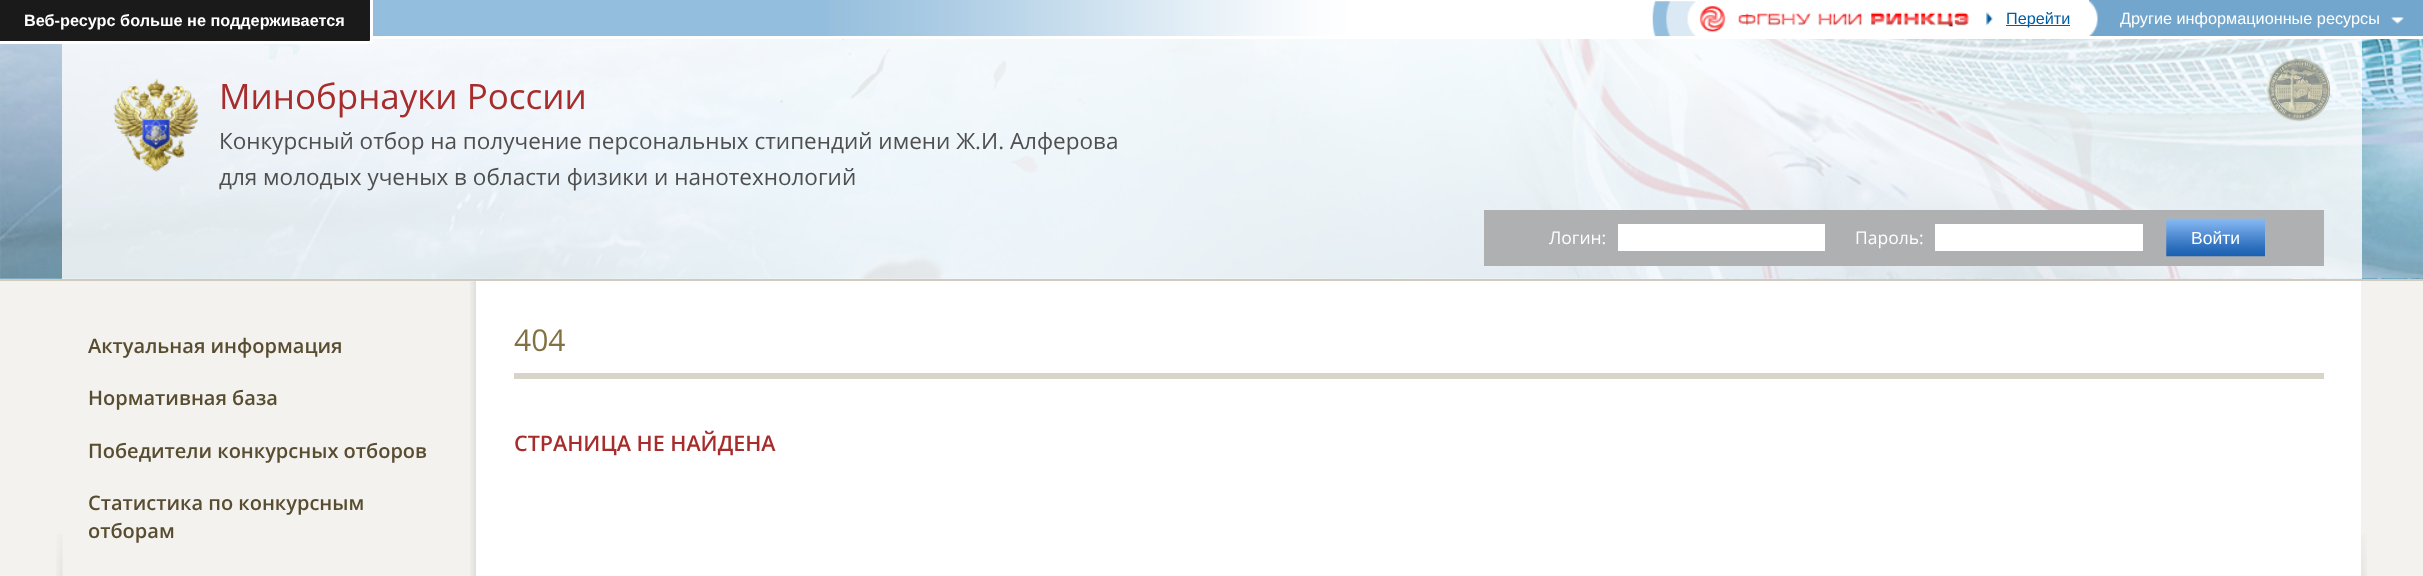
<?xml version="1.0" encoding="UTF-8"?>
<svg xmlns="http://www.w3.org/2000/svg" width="2423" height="576">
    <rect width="100%" height="100%" fill="#FFFFFF"/>
    <rect x="373" y="0" width="976" height="36" fill="#94BEDD"/>
    <image x="829" y="0" width="1260" height="36" href="img_01.png"/>
    <image x="0" y="39" width="2423" height="240" href="img_06.png"/>
    <rect x="-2.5" y="-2.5" width="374" height="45" rx="2.5" fill="#1A1A1A" stroke="#FFFFFF" stroke-width="3"/>
    <text x="24" y="26" font-family="Liberation Sans" font-size="16.25" font-weight="700" fill="#FFFFFF">Веб-ресурс больше не поддерживается</text>
    <image x="1652" y="1" width="317" height="36" href="img_02.png"/>
    <image x="1986" y="12" width="7" height="14" href="img_03.png"/>
    <rect x="2006" y="25" width="64" height="1" fill="#005DA1"/>
    <text x="2006" y="24" font-family="Liberation Sans" font-size="16.25" fill="#005DA1">Перейти</text>
    <rect x="2089" y="0" width="334" height="36" fill="#73A6CC"/>
    <image x="2089" y="1" width="9" height="35" href="img_04.png"/>
    <image x="2391" y="17" width="32" height="20" href="img_05.png"/>
    <text x="2120" y="24" font-family="Liberation Sans" font-size="16.25" fill="#FFFFFF">Другие информационные ресурсы</text>
    <rect x="0" y="279" width="2423" height="2" fill="#D1CBBF"/>
    <image x="113" y="78" width="86" height="94" href="img_07.png"/>
    <text x="219" y="109" font-family="Open Sans" font-size="35" fill="#A72D2D">Минобрнауки России</text>
    <image x="2267" y="58" width="63" height="64" href="img_08.png"/>
    <text font-family="Open Sans" font-size="22.5" fill="#4F4F4F">
        <tspan x="219" y="149">Конкурсный отбор на получение персональных стипендий имени Ж.И. Алферова</tspan>
        <tspan x="219" y="185">для молодых ученых в области физики и нанотехнологий</tspan>
    </text>
    <rect x="1484" y="210" width="840" height="56" fill="#AEB0B1"/>
    <text x="1549" y="244" font-family="Open Sans" font-size="17.5" fill="#FFFFFF">Логин:</text>
    <rect x="1618" y="224" width="207" height="27" fill="#FFFFFF"/>
    <text x="1855" y="244" font-family="Open Sans" font-size="17.5" fill="#FFFFFF">Пароль:</text>
    <rect x="1935" y="224" width="208" height="27" fill="#FFFFFF"/>
    <image x="2166" y="218" width="99" height="39" href="img_09.png"/>
    <text x="2191" y="244" font-family="Liberation Sans" font-size="17.5" fill="#FFFFFF">Войти</text>
    <rect x="0" y="281" width="2423" height="295" fill="#F3F2EE"/>
    <image x="470" y="281" width="6" height="295" href="img_10.png"/>
    <text x="88" y="353" font-family="Open Sans" font-size="20" font-weight="600" fill="#594D31">Актуальная информация</text>
    <text x="88" y="405" font-family="Open Sans" font-size="20" font-weight="600" fill="#594D31">Нормативная база</text>
    <text x="88" y="458" font-family="Open Sans" font-size="20" font-weight="600" fill="#594D31">Победители конкурсных отборов</text>
    <text font-family="Open Sans" font-size="20" font-weight="600" fill="#594D31">
        <tspan x="88" y="510">Статистика по конкурсным</tspan>
        <tspan x="88" y="538">отборам</tspan>
    </text>
    <rect x="476" y="281" width="1885" height="295" fill="#FFFFFF"/>
    <text x="514" y="351" font-family="Open Sans" font-size="30" fill="#847142">404</text>
    <rect x="514" y="373" width="1810" height="6" fill="#D8D4CA"/>
    <text x="514" y="451" font-family="Open Sans" font-size="21.5" font-weight="600" fill="#A72D2D">СТРАНИЦА НЕ НАЙДЕНА</text>
    <image x="56" y="534" width="7" height="42" href="img_11.png"/>
    <image x="2361" y="534" width="6" height="42" href="img_12.png"/>
</svg>
